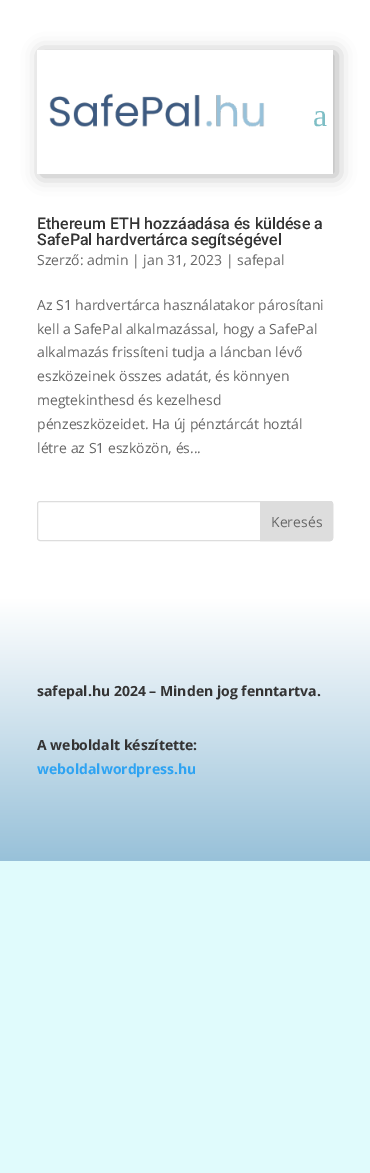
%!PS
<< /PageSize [370 1173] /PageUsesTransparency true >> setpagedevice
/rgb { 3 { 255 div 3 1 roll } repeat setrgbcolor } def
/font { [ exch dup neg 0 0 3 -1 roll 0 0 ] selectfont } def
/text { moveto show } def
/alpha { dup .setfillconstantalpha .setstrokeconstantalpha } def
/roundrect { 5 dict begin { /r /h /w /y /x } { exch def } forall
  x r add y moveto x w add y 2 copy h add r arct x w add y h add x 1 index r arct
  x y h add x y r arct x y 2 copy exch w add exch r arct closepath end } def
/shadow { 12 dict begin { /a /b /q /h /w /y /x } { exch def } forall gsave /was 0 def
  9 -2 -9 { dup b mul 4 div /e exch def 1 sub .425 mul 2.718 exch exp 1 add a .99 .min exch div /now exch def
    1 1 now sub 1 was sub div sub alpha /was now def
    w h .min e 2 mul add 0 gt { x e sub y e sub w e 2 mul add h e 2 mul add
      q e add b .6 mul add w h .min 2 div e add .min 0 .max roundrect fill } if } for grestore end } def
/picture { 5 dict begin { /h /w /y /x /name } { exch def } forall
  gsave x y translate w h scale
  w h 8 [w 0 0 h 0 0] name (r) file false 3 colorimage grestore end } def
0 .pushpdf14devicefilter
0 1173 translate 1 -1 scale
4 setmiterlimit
224 251 252 rgb
0 0 370 1173 rectfill
255 255 255 rgb
0 0 370 599 rectfill
gsave
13 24 moveto 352 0 rlineto 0 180 rlineto -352 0 rlineto closepath 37 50 moveto 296 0 rlineto 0 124 rlineto -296 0 rlineto closepath eoclip newpath
0 0 0 rgb
41 52 296 124 0 9 0.3 shadow
grestore
(img_01.rgb) 49 93 216 34 picture
221 221 221 rgb
37.5 501.5 295 39 2.5 roundrect stroke
260.5 501.5 moveto 69.5 0 rlineto 1.5 0 2.5 1 2.5 2.5 rcurveto 0 34 rlineto 0 1.5 -1 2.5 -2.5 2.5 rcurveto -69.5 0 rlineto closepath gsave fill grestore
stroke
gsave 0 599 moveto 370 0 rlineto 0 262 rlineto -370 0 rlineto closepath clip newpath
<< /ShadingType 2 /ColorSpace /DeviceRGB /Coords [185 599 185 861] /Extend [true true] /Function << /FunctionType 2 /Domain [0 1] /C0 [1 1 1] /C1 [0.596 0.757 0.851] /N 1 >> >> shfill grestore
/LiberationSerif-Regular 32 font
126 190 197 rgb
(a) 313 126 text
/Roboto-Medium 16 font
51 51 51 rgb
(Ethereum ETH hozzáadása és küldése a) 37 229 text
(SafePal hardvertárca segítségével) 37 245 text
/OpenSans-Regular 14 font
102 102 102 rgb
(Szerző: admin | jan 31, 2023 | safepal) 37 265 text
(Az S1 hardvertárca használatakor párosítani) 37 310 text
(kell a SafePal alkalmazással, hogy a SafePal) 37 334 text
(alkalmazás frissíteni tudja a láncban lévő) 37 357 text
(eszközeinek összes adatát, és könnyen) 37 381 text
(megtekinthesd és kezelhesd) 37 405 text
(pénzeszközeidet. Ha új pénztárcát hoztál) 37 429 text
(létre az S1 eszközön, és...) 37 453 text
(Keresés) 271 527 text
/OpenSans-Bold 14 font
51 51 51 rgb
(safepal.hu 2024 – Minden jog fenntartva.) 37 696 text
(A weboldalt készítette:) 37 750 text
46 163 242 rgb
(weboldalwordpress.hu) 37 774 text
.poppdf14devicefilter showpage
